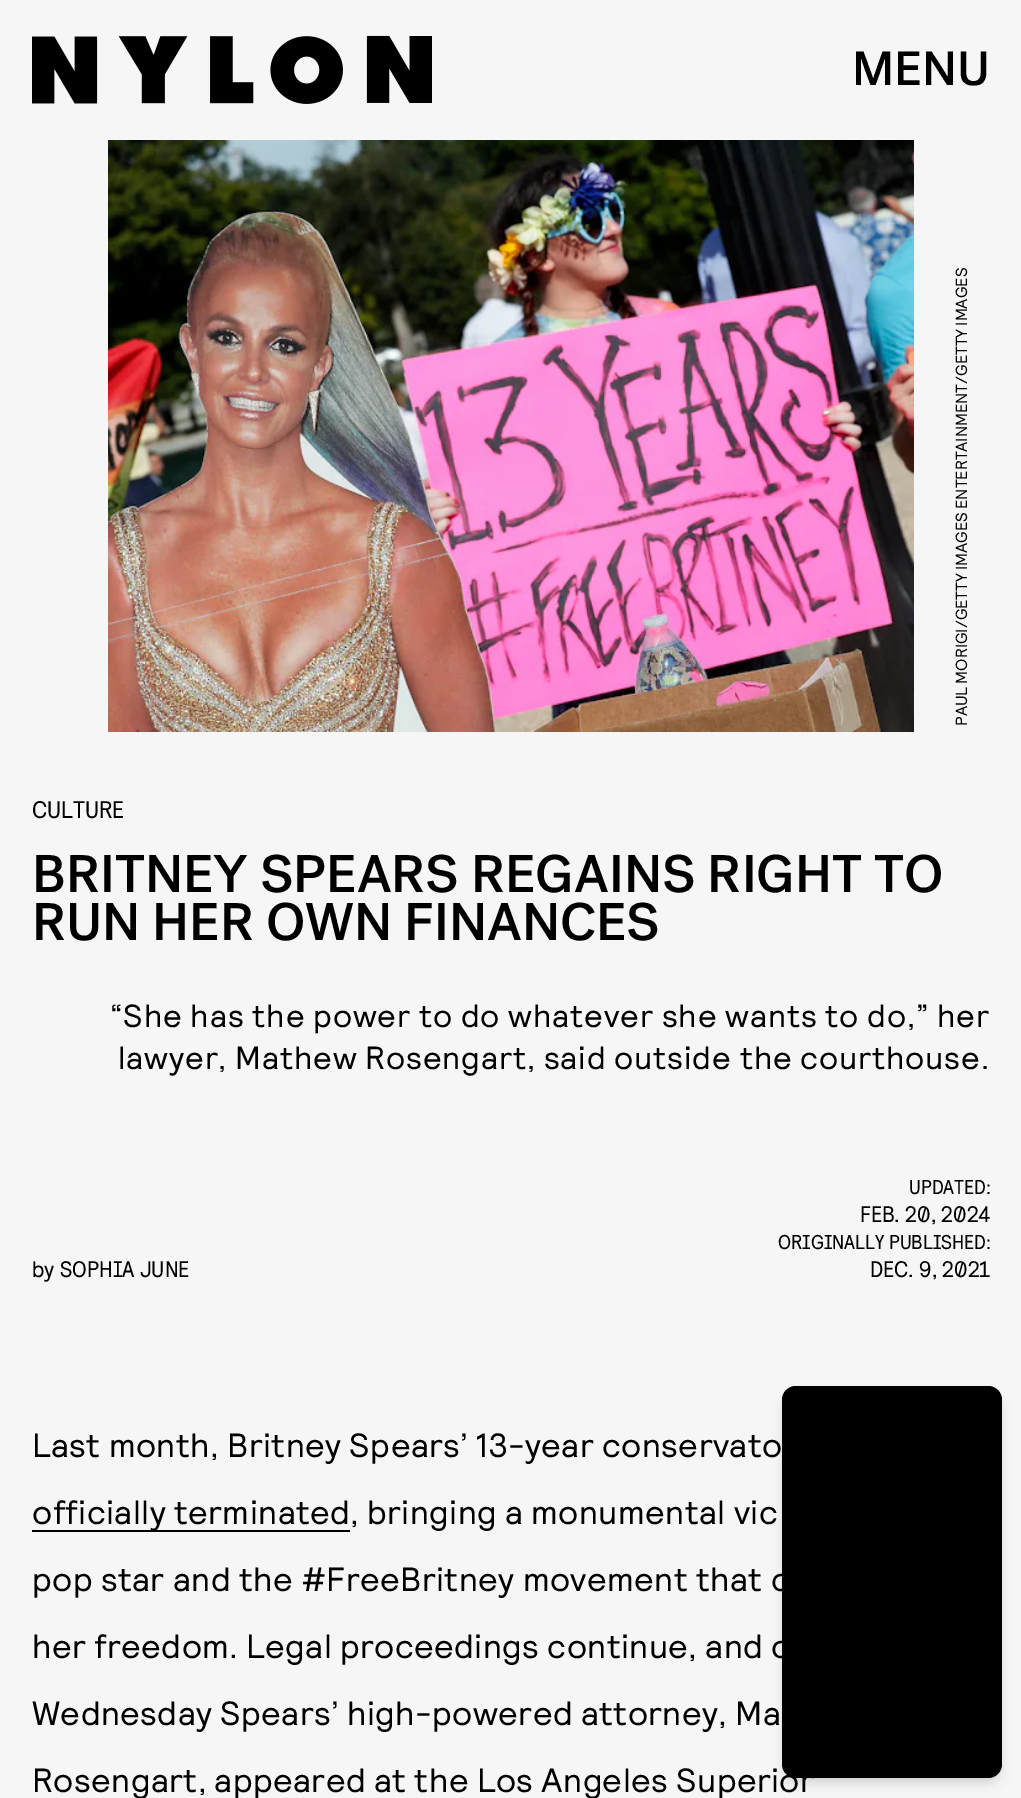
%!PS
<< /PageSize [1021 1798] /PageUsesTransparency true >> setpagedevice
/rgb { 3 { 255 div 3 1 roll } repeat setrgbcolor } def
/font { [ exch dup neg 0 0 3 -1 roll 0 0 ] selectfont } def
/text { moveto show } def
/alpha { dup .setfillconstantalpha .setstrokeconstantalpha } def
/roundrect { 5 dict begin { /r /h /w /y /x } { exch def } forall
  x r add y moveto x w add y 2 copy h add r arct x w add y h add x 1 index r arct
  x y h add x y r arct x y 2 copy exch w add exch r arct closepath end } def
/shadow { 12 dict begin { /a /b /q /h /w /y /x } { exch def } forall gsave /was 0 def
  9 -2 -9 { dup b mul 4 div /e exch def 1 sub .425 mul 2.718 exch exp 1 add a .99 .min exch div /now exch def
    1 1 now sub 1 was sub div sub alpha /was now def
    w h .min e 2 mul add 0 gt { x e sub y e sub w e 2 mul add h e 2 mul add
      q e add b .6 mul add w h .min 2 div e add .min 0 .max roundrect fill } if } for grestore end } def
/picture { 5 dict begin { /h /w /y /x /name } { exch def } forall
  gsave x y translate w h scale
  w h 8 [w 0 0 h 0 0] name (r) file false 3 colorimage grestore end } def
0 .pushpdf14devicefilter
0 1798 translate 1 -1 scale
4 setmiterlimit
246 246 246 rgb
0 0 1021 1798 rectfill
(img_01.rgb) 32 35 400 69 picture
(img_02.rgb) 108 140 806 592 picture
0 0 0 rgb
32 1530 318 2 rectfill
786 1394 212 384 10 4 0.1 shadow
784 1396 216 388 12 6 0.1 shadow
782 1386 220 392 14 roundrect fill
/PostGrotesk-Medium 48 font
(MENU) 852 85 text
/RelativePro-Regular 16 font
gsave 967 726 translate -90 rotate 0 0 moveto -0.5 0 32 (PAUL MORIGI/GETTY IMAGES ENTERTAINMENT/GETTY IMAGES) widthshow grestore
/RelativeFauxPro-Regular 24 font
(CULTURE) 32 818 text
/PostGrotesk-Medium 52.75 font
(BRITNEY SPEARS REGAINS RIGHT TO) 32 892 text
(RUN HER OWN FINANCES) 32 940 text
/RelativePro-Regular 32 font
110 1027 moveto 0.8 0 (“She has the power to do whatever she wants to do,” her) ashow
118 1069 moveto 0.8 0 (lawyer, Mathew Rosengart, said outside the courthouse.) ashow
/RelativeFauxPro-Regular 22.5 font
(by SOPHIA JUNE) 32 1277 text
/RelativeFauxPro-Regular 20 font
(UPDATED:) 909 1194 text
/RelativeFauxPro-Regular 22.5 font
(FEB. 20, 2024) 860 1222 text
/RelativeFauxPro-Regular 20 font
(ORIGINALLY PUBLISHED:) 778 1249 text
/RelativeFauxPro-Regular 22.5 font
(DEC. 9, 2021) 870 1277 text
/RelativePro-Regular 33.6 font
32 1457 moveto 0.4 0 (Last month, Britney Spears’ 13-year conservato) ashow
32 1524 moveto 0.4 0 (officially terminated) ashow
350 1524 moveto 0.4 0 (, bringing a monumental vic) ashow
32 1591 moveto 0.4 0 (pop star and the #FreeBritney movement that c) ashow
32 1658 moveto 0.4 0 (her freedom. Legal proceedings continue, and o) ashow
32 1725 moveto 0.4 0 (Wednesday Spears’ high-powered attorney, Ma) ashow
32 1792 moveto 0.4 0 (Rosengart, appeared at the Los Angeles Superior) ashow
.poppdf14devicefilter showpage
